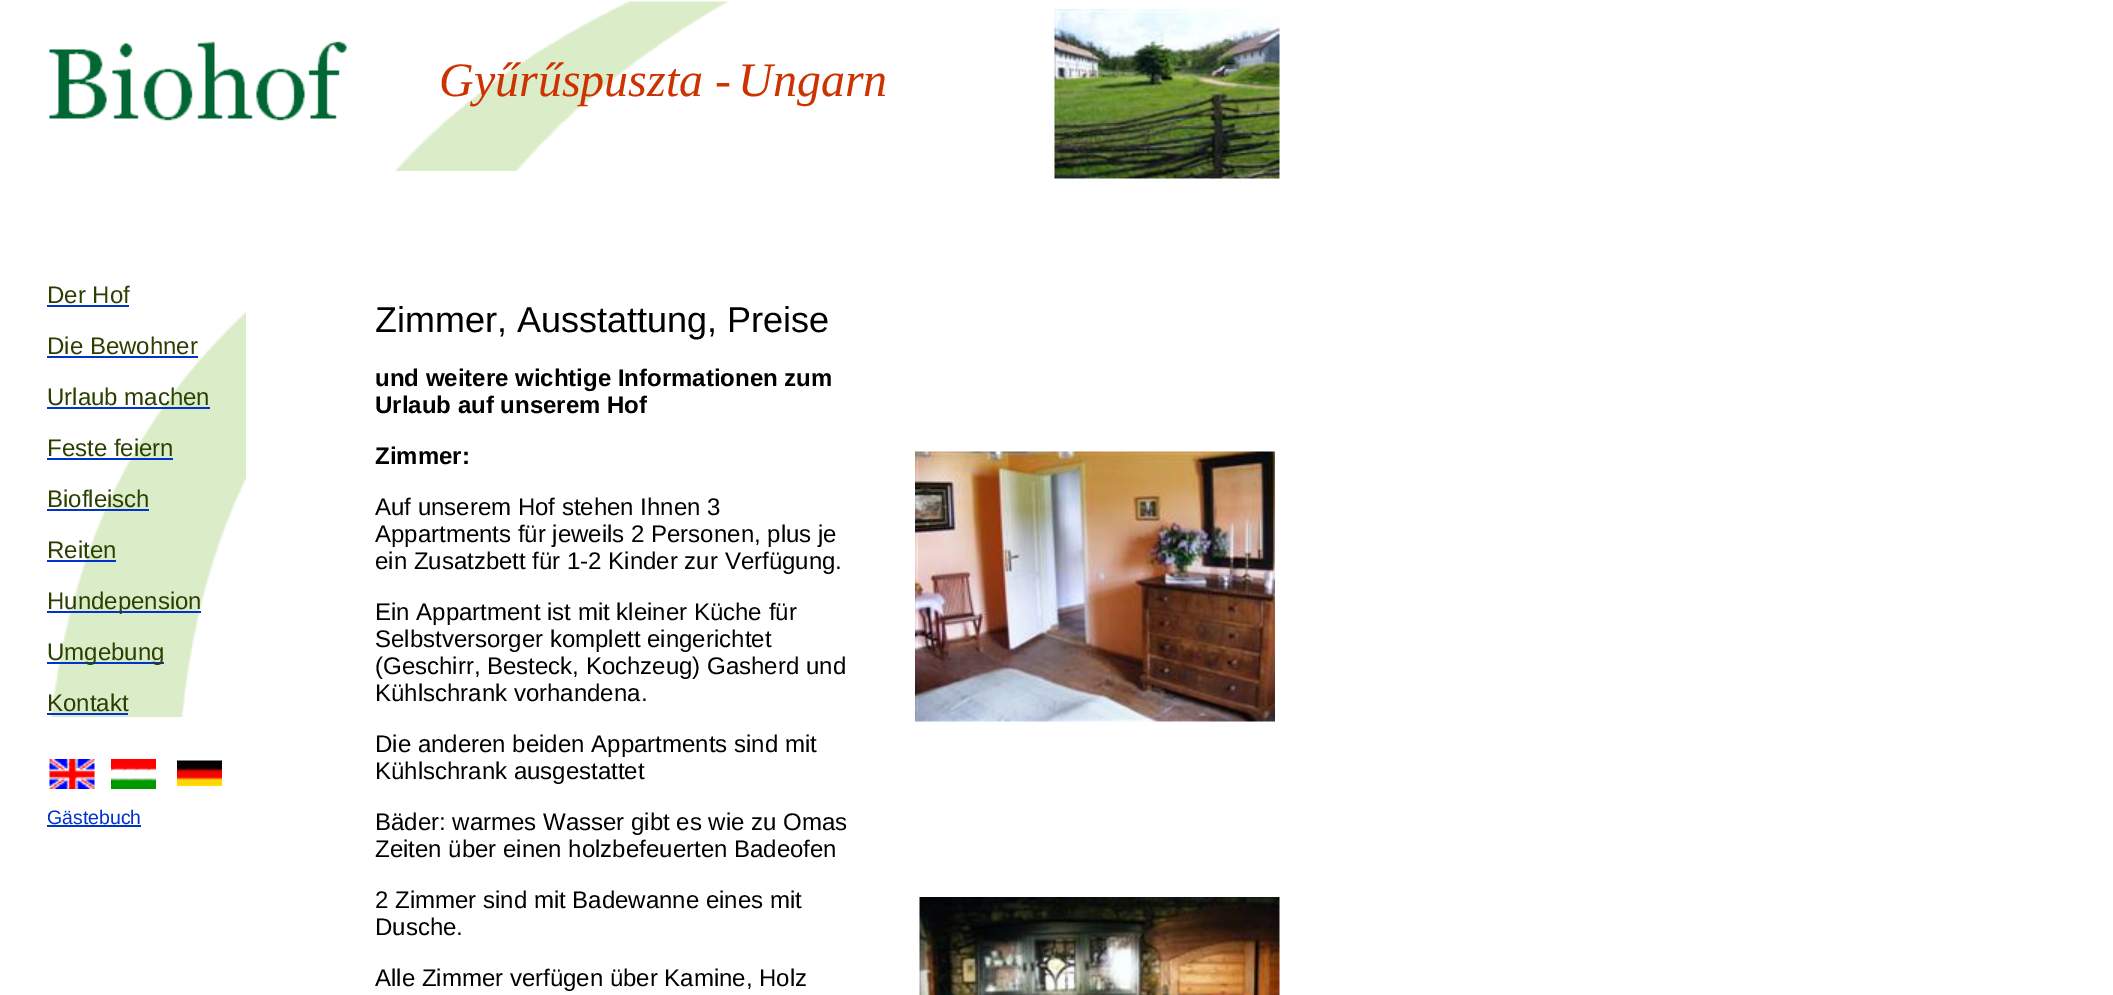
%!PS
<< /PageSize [2113 995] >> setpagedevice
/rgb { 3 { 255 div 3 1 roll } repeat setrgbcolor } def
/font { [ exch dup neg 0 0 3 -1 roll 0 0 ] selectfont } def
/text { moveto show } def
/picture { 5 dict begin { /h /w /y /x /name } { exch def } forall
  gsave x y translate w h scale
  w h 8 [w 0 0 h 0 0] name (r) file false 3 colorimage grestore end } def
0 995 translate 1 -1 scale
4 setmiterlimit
255 255 255 rgb
0 0 2113 995 rectfill
(img_01.rgb) 49 41 298 80 picture
(img_02.rgb) 394 1 334 170 picture
(img_03.rgb) 1054 9 226 170 picture
(img_04.rgb) 50 311 196 406 picture
0 51 204 rgb
47 305 82 2 rectfill
47 356 151 2 rectfill
47 407 163 2 rectfill
47 458 126 2 rectfill
47 509 102 2 rectfill
47 560 69 2 rectfill
47 611 154 2 rectfill
47 662 117 2 rectfill
47 713 81 2 rectfill
(img_05.rgb) 49 759 46 30 picture
(img_06.rgb) 111 759 45 30 picture
(img_07.rgb) 177 760 45 26 picture
47 825 94 2 rectfill
(img_08.rgb) 915 451 360 271 picture
(img_09.rgb) 919 897 361 98 picture
/LiberationSerif-Italic 48 font
204 51 0 rgb
(Gyűrűspuszta -) 439 96 text
(Ungarn) 738 96 text
/LiberationSans-Regular 24 font
42 63 0 rgb
(Der Hof) 47 303 text
(Die Bewohner) 47 354 text
(Urlaub machen) 47 405 text
(Feste feiern) 47 456 text
(Biofleisch) 47 507 text
(Reiten) 47 558 text
(Hundepension) 47 609 text
(Umgebung) 47 660 text
(Kontakt) 47 711 text
/LiberationSans-Regular 19.5 font
0 51 204 rgb
(Gästebuch) 47 824 text
/LiberationSans-Regular 36 font
0 0 0 rgb
(Zimmer, Ausstattung, Preise) 375 332 text
/LiberationSans-Bold 24 font
(und weitere wichtige Informationen zum) 375 386 text
(Urlaub auf unserem Hof) 375 413 text
(Zimmer:) 375 464 text
/LiberationSans-Regular 24 font
(Auf unserem Hof stehen Ihnen 3) 375 515 text
(Appartments für jeweils 2 Personen, plus je) 375 542 text
(ein Zusatzbett für 1-2 Kinder zur Verfügung.) 375 569 text
(Ein Appartment ist mit kleiner Küche für) 375 620 text
(Selbstversorger komplett eingerichtet) 375 647 text
(\(Geschirr, Besteck, Kochzeug\) Gasherd und) 375 674 text
(Kühlschrank vorhandena.) 375 701 text
(Die anderen beiden Appartments sind mit) 375 752 text
(Kühlschrank ausgestattet) 375 779 text
(Bäder: warmes Wasser gibt es wie zu Omas) 375 830 text
(Zeiten über einen holzbefeuerten Badeofen) 375 857 text
(2 Zimmer sind mit Badewanne eines mit) 375 908 text
(Dusche.) 375 935 text
(Alle Zimmer verfügen über Kamine, Holz) 375 986 text
showpage
